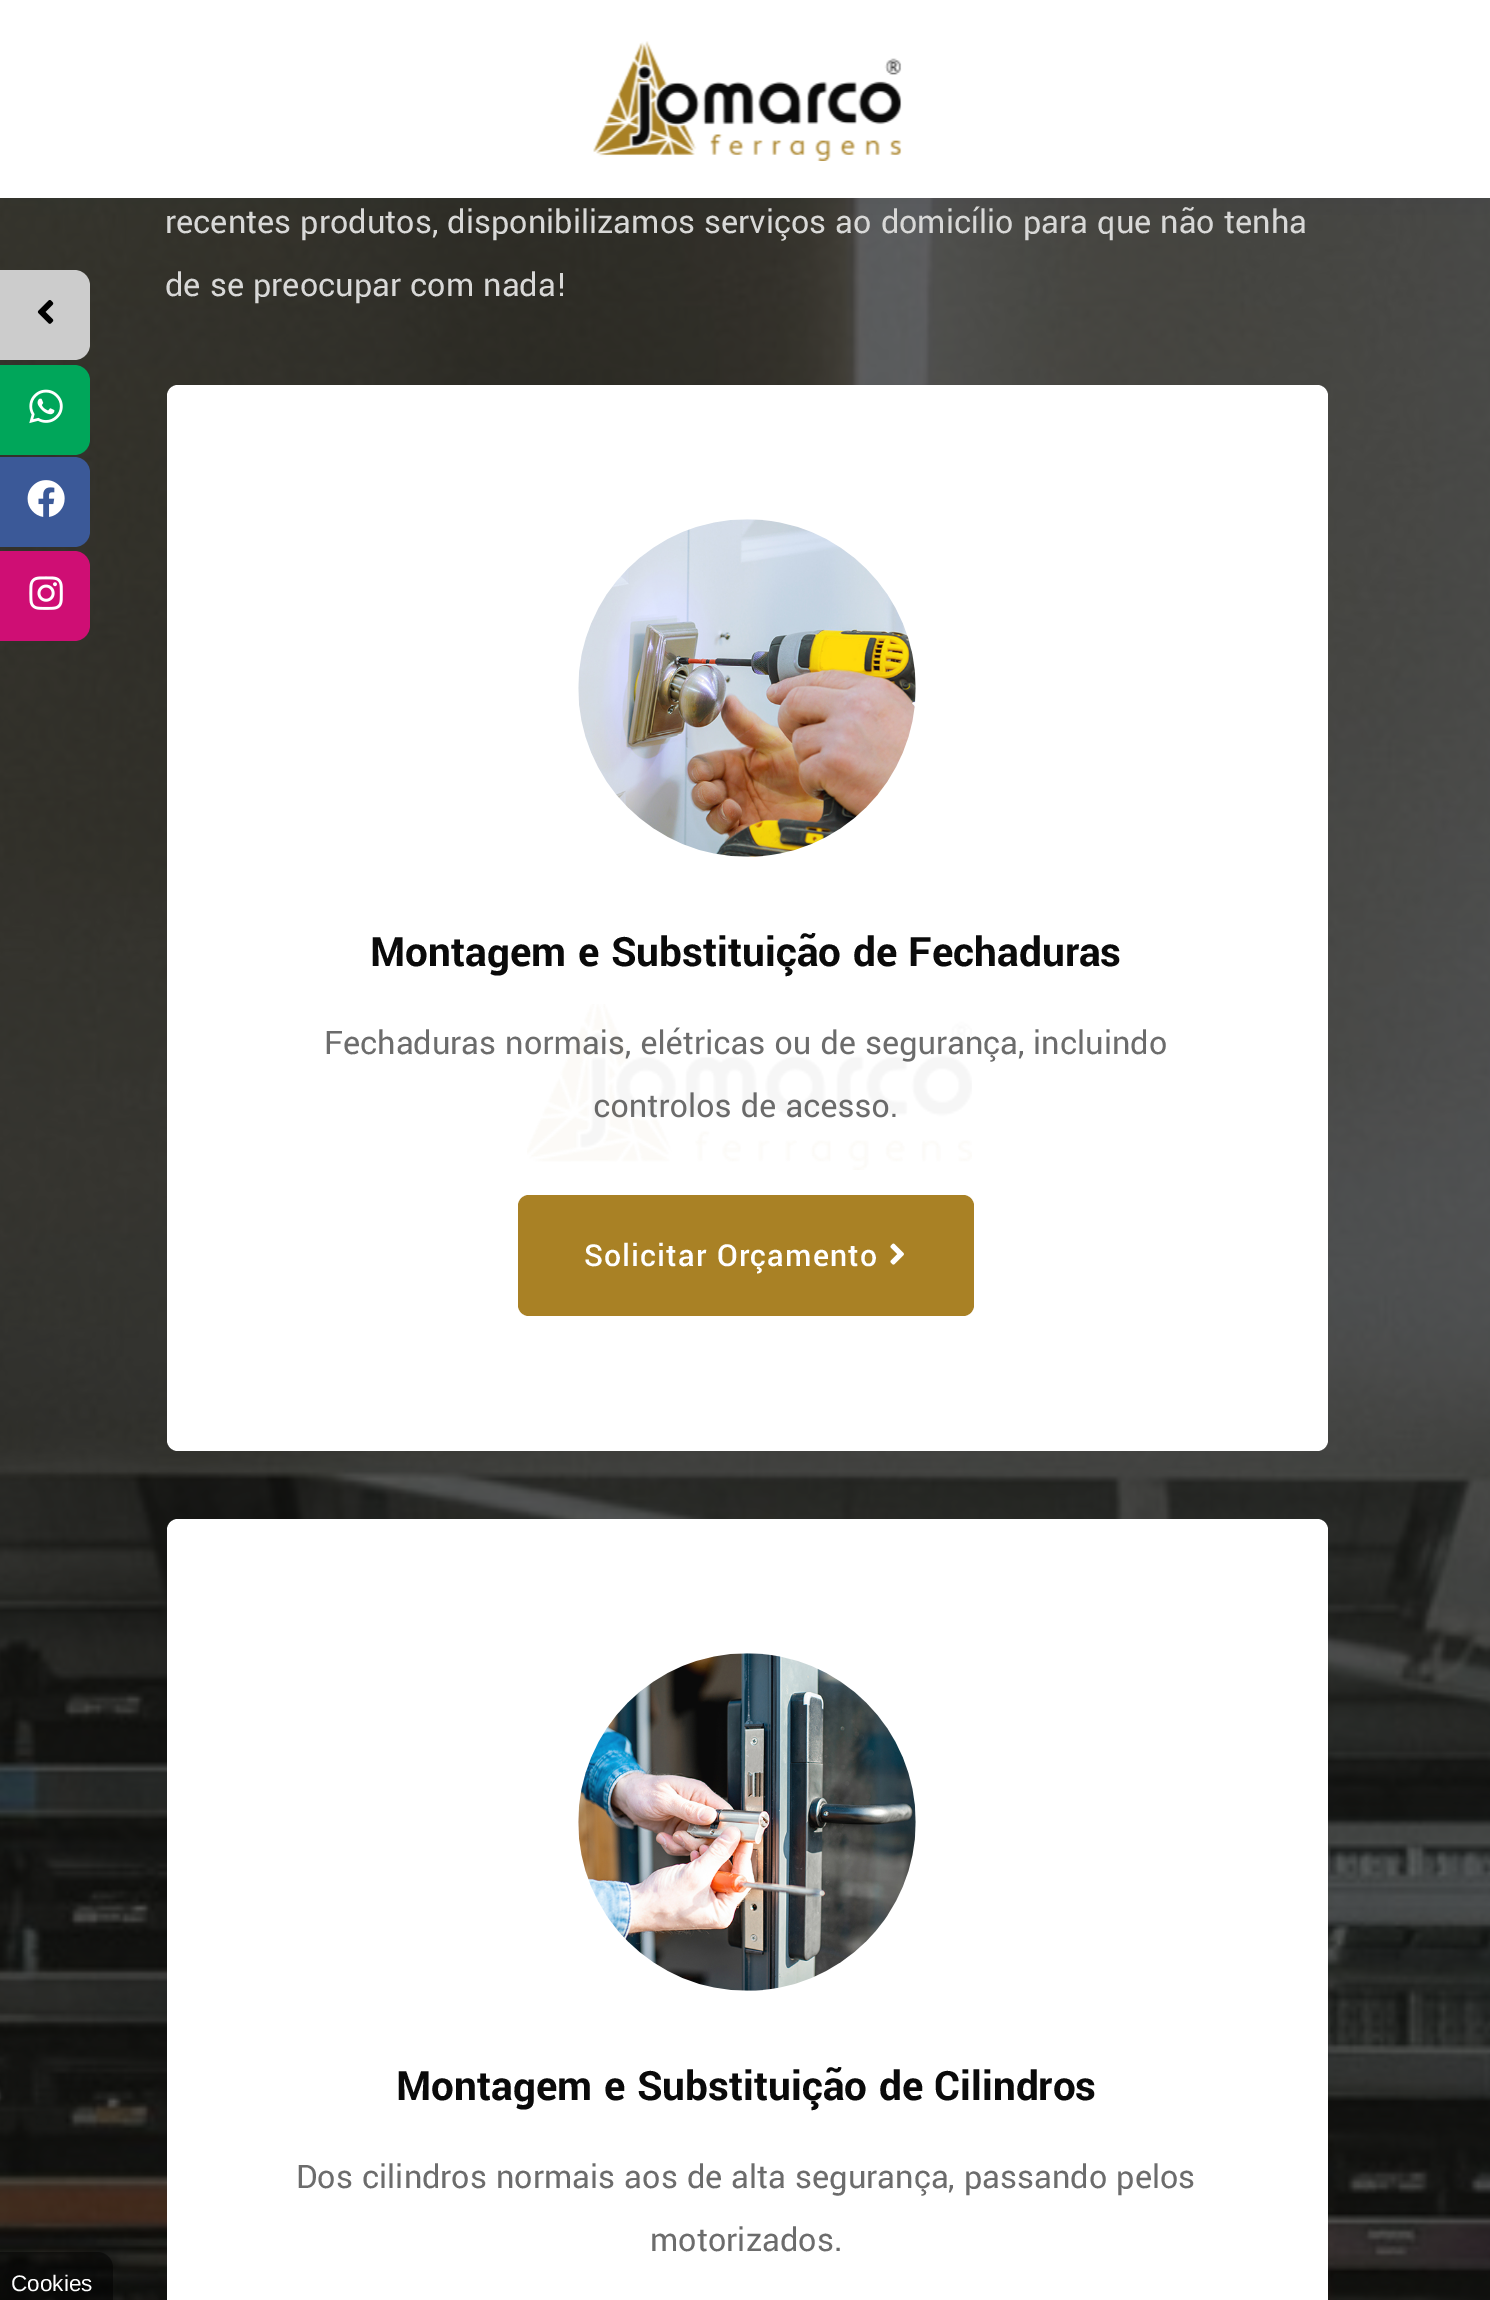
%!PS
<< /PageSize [1490 2300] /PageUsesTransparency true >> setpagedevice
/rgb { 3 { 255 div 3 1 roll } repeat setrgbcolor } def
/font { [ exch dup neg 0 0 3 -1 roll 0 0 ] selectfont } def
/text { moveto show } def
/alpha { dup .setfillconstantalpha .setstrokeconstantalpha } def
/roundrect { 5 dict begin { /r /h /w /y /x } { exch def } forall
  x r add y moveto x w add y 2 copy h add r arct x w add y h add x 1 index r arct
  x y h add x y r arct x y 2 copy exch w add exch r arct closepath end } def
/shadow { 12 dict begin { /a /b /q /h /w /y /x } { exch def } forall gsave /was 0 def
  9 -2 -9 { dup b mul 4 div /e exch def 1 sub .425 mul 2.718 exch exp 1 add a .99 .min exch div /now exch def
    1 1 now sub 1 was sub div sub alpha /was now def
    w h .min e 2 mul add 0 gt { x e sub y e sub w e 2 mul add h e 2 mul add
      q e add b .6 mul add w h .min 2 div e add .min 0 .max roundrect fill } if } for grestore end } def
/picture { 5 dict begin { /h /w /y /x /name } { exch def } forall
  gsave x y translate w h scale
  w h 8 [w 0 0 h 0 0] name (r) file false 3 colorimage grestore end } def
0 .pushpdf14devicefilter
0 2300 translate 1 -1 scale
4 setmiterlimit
255 255 255 rgb
0 0 1490 2300 rectfill
(img_06.rgb) 0 198 1490 2102 picture
17 29 60 rgb
0 0 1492 198 0 22.5 0.1 shadow
255 255 255 rgb
0 0 1490 198 rectfill
(img_01.rgb) 593 41 309 120 picture
204 204 204 rgb
0 270 moveto 74 0 rlineto 9 0 16 7 16 16 rcurveto 0 58 rlineto 0 9 -7 16 -16 16 rcurveto -74 0 rlineto closepath fill
(img_02.rgb) 37 300 17 24 picture
0 166 90 rgb
0 365 moveto 74 0 rlineto 9 0 16 7 16 16 rcurveto 0 58 rlineto 0 9 -7 16 -16 16 rcurveto -74 0 rlineto closepath fill
(img_03.rgb) 29 389 34 35 picture
59 89 152 rgb
0 457 moveto 74 0 rlineto 9 0 16 7 16 16 rcurveto 0 58 rlineto 0 9 -7 16 -16 16 rcurveto -74 0 rlineto closepath fill
(img_04.rgb) 27 480 38 37 picture
207 14 116 rgb
0 551 moveto 74 0 rlineto 9 0 16 7 16 16 rcurveto 0 58 rlineto 0 9 -7 16 -16 16 rcurveto -74 0 rlineto closepath fill
(img_05.rgb) 29 576 34 34 picture
255 255 255 rgb
167 385 1161 1066 11 roundrect fill
(img_07.rgb) 578 519 338 338 picture
169 129 37 rgb
518 1195 456 121 11 roundrect fill
(img_08.rgb) 890 1243 14 22 picture
255 255 255 rgb
167 1519 1161 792 11 roundrect fill
(img_09.rgb) 578 1653 338 338 picture
0.5 alpha
0 0 0 rgb
0 2252 moveto 97 0 rlineto 9 0 16 7 16 16 rcurveto 0 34 rlineto -113 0 rlineto closepath fill
/Yantramanav-Regular 36 font
1 alpha
216 216 215 rgb
(recentes produtos, disponibilizamos serviços ao domicílio para que não tenha) 165 233 text
(de se preocupar com nada!) 165 296 text
/Yantramanav-Bold 45 font
10 10 10 rgb
(Montagem e Substituição de Fechaduras) 370 966 text
/Yantramanav-Regular 36 font
108 108 108 rgb
(Fechaduras normais, elétricas ou de segurança, incluindo) 324 1054 text
(controlos de acesso.) 593 1117 text
/Yantramanav-Medium 33.75 font
255 255 255 rgb
584 1266 moveto 1.1 0 (Solicitar Orçamento) ashow
/Yantramanav-Bold 45 font
10 10 10 rgb
(Montagem e Substituição de Cilindros) 396 2100 text
/Yantramanav-Regular 36 font
108 108 108 rgb
(Dos cilindros normais aos de alta segurança, passando pelos) 296 2188 text
(motorizados.) 650 2251 text
(img_10.rgb) 527 1004 445 166 picture
/LiberationSans-Regular 22.5 font
255 255 255 rgb
(Cookies) 11 2291 text
.poppdf14devicefilter showpage
